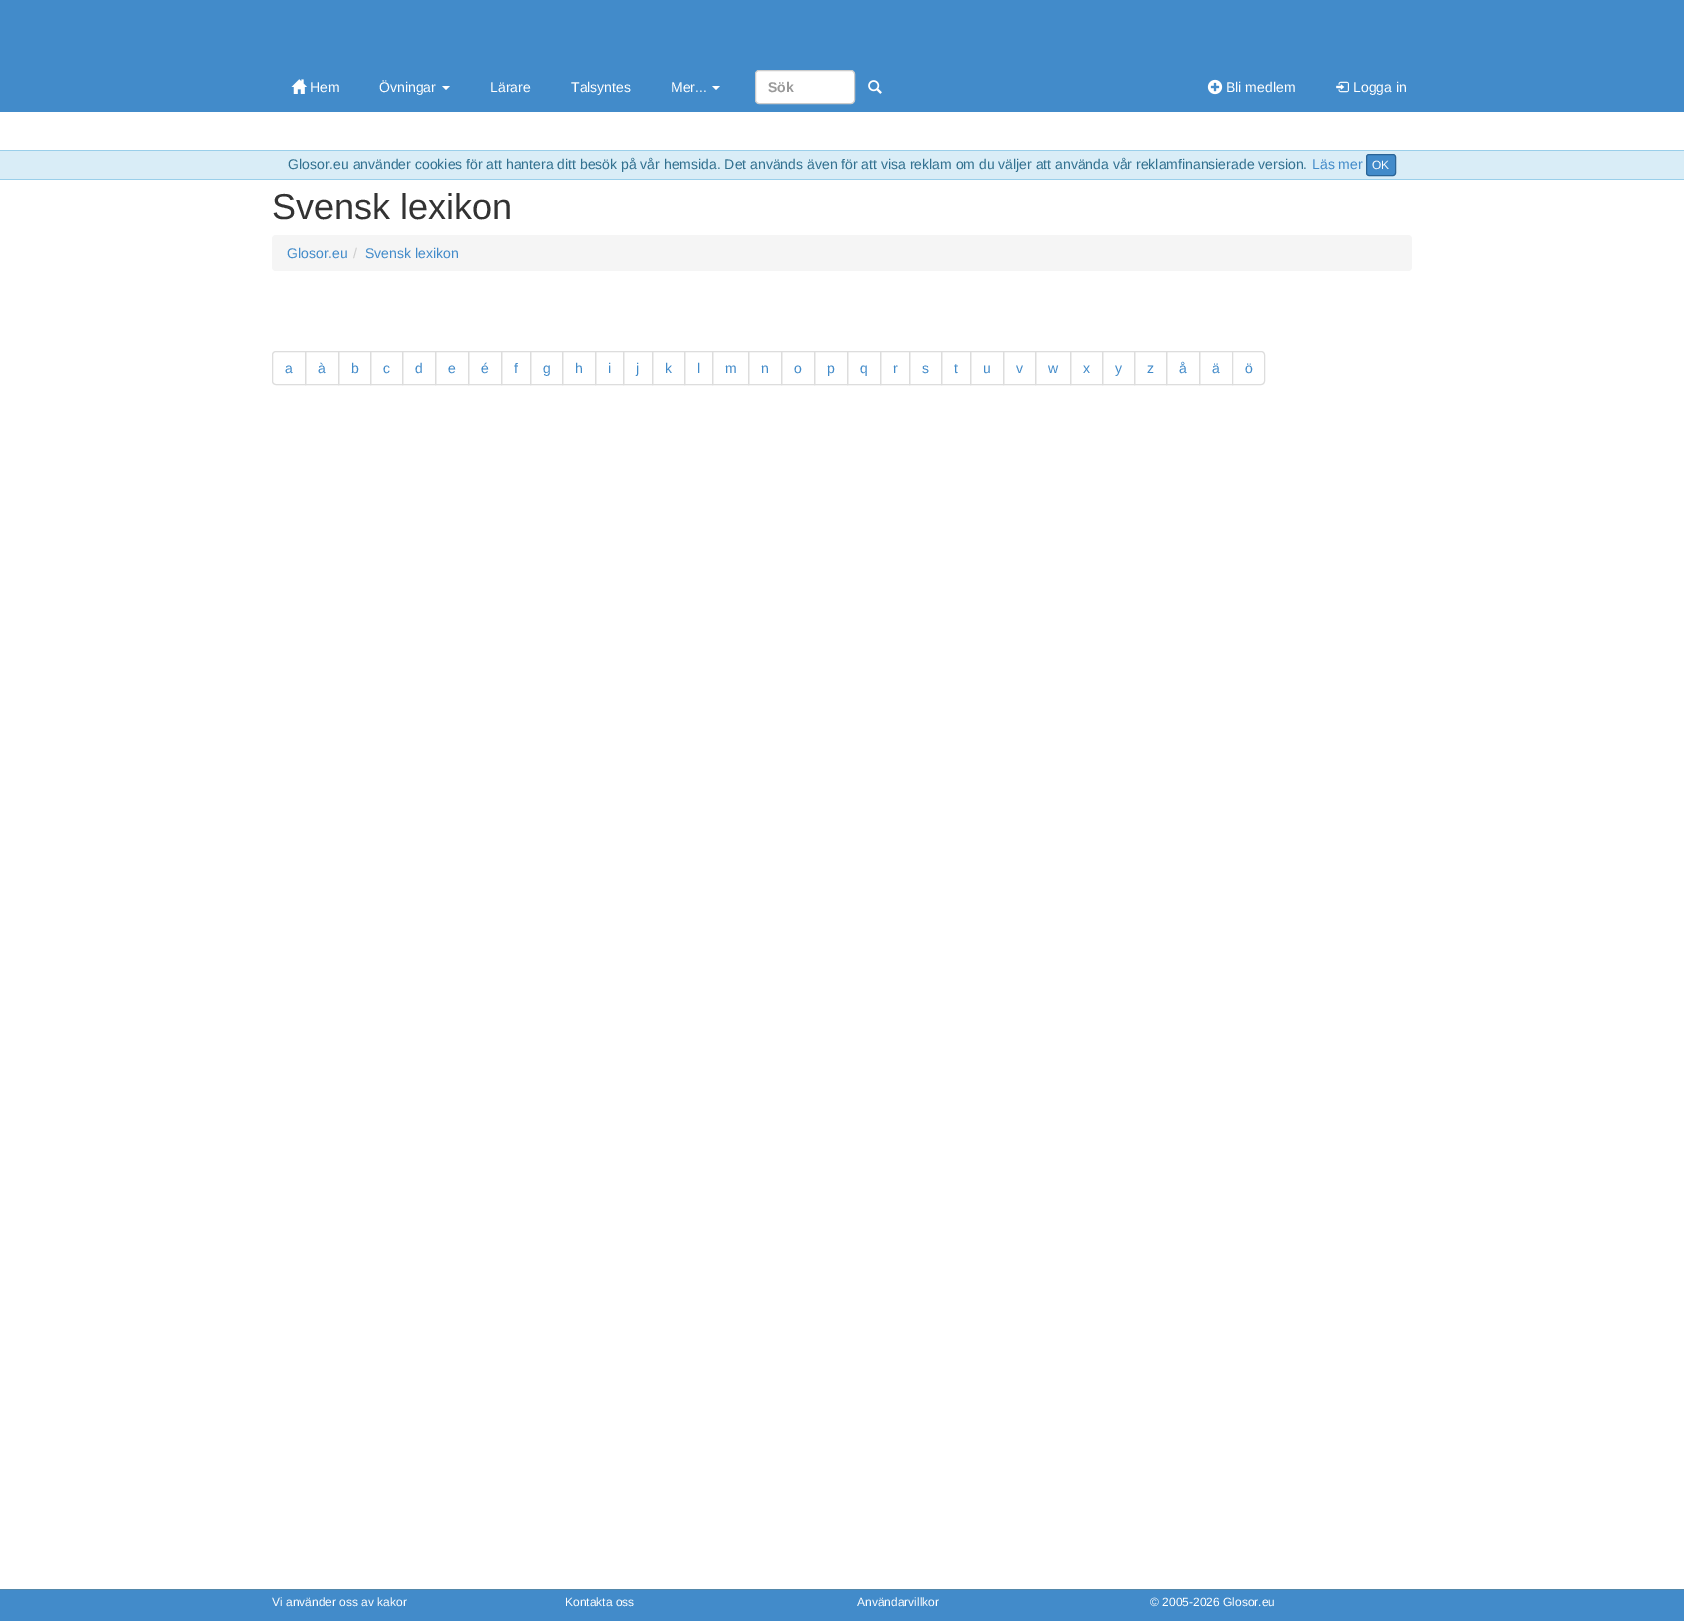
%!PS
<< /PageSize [1684 1621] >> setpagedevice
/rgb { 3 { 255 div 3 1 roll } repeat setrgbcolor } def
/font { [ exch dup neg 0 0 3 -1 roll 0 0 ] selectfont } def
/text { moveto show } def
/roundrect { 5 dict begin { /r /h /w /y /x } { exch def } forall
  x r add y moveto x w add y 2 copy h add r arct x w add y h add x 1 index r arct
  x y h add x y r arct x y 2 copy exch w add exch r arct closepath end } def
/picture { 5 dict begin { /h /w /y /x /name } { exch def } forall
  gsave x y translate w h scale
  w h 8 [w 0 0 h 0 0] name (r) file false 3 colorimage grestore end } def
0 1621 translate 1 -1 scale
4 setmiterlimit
255 255 255 rgb
0 0 1684 1621 rectfill
66 139 202 rgb
0 0 1684 112 rectfill
(img_01.rgb) 291 79 16 15 picture
255 255 255 rgb
442 86 moveto 8 0 rlineto -4 4 rlineto closepath fill
712 86 moveto 8 0 rlineto -4 4 rlineto closepath fill
755.5 70.5 99 33 3.5 roundrect gsave fill grestore
204 204 204 rgb
stroke
(img_02.rgb) 868 80 14 14 picture
(img_03.rgb) 1207 79 16 16 picture
(img_04.rgb) 1336 81 13 12 picture
217 237 247 rgb
0 151 1684 28 rectfill
154 207 234 rgb
0 150 1684 1 rectfill
0 179 1684 1 rectfill
66 139 202 rgb
1366.5 154.5 29 21 2.5 roundrect gsave fill grestore
42 100 150 rgb
stroke
245 245 245 rgb
272 235 1140 36 4 roundrect fill
221 221 221 rgb
276 351.5 moveto 29.5 0 rlineto 0 33 rlineto -29.5 0 rlineto -2 0 -3.5 -1.5 -3.5 -3.5 rcurveto 0 -26 rlineto 0 -2 1.5 -3.5 3.5 -3.5 rcurveto closepath stroke
305.5 351.5 33 33 rectstroke
338.5 351.5 32 33 rectstroke
370.5 351.5 32 33 rectstroke
402.5 351.5 33 33 rectstroke
435.5 351.5 33 33 rectstroke
468.5 351.5 33 33 rectstroke
501.5 351.5 29 33 rectstroke
530.5 351.5 32 33 rectstroke
562.5 351.5 33 33 rectstroke
595.5 351.5 28 33 rectstroke
623.5 351.5 29 33 rectstroke
652.5 351.5 32 33 rectstroke
684.5 351.5 28 33 rectstroke
712.5 351.5 36 33 rectstroke
748.5 351.5 33 33 rectstroke
781.5 351.5 33 33 rectstroke
814.5 351.5 33 33 rectstroke
847.5 351.5 33 33 rectstroke
880.5 351.5 29 33 rectstroke
909.5 351.5 32 33 rectstroke
941.5 351.5 29 33 rectstroke
970.5 351.5 33 33 rectstroke
1003.5 351.5 32 33 rectstroke
1035.5 351.5 35 33 rectstroke
1070.5 351.5 32 33 rectstroke
1102.5 351.5 32 33 rectstroke
1134.5 351.5 32 33 rectstroke
1166.5 351.5 33 33 rectstroke
1199.5 351.5 33 33 rectstroke
255 255 255 rgb
1232.5 351.5 moveto 28.5 0 rlineto 2 0 3.5 1.5 3.5 3.5 rcurveto 0 26 rlineto 0 2 -1.5 3.5 -3.5 3.5 rcurveto -28.5 0 rlineto closepath gsave fill grestore
221 221 221 rgb
stroke
66 139 202 rgb
0 1590 1684 31 rectfill
85 136 170 rgb
0 1589 1684 1 rectfill
/LiberationSans-Regular 14 font
255 255 255 rgb
(Hem) 310 92 text
(Övningar) 379 92 text
(Lärare) 490 92 text
(Talsyntes) 571 92 text
(Mer...) 671 92 text
/LiberationSans-Bold 14 font
153 153 153 rgb
(Sök) 768 92 text
/LiberationSans-Regular 14 font
255 255 255 rgb
(Bli medlem) 1226 92 text
(Logga in) 1353 92 text
49 112 143 rgb
(Glosor.eu använder cookies för att hantera ditt besök på vår hemsida. Det används även för att visa reklam om du väljer att använda vår reklamfinansierade version.) 288 169 text
66 139 202 rgb
(Läs mer) 1312 169 text
/LiberationSans-Regular 12 font
255 255 255 rgb
(OK) 1372 169 text
/LiberationSans-Regular 36 font
51 51 51 rgb
(Svensk lexikon) 272 219 text
/LiberationSans-Regular 14 font
66 139 202 rgb
(Glosor.eu) 287 258 text
204 204 204 rgb
(/) 353 258 text
66 139 202 rgb
(Svensk lexikon) 365 258 text
(a) 285 373 text
(à) 318 373 text
(b) 351 373 text
(c) 383 373 text
(d) 415 373 text
(e) 448 373 text
(é) 481 373 text
(f) 514 373 text
(g) 543 373 text
(h) 575 373 text
(i) 608 373 text
(j) 636 373 text
(k) 665 373 text
(l) 697 373 text
(m) 725 373 text
(n) 761 373 text
(o) 794 373 text
(p) 827 373 text
(q) 860 373 text
(r) 893 373 text
(s) 922 373 text
(t) 954 373 text
(u) 983 373 text
(v) 1016 373 text
(w) 1048 373 text
(x) 1083 373 text
(y) 1115 373 text
(z) 1147 373 text
(å) 1179 373 text
(ä) 1212 373 text
(ö) 1245 373 text
/LiberationSans-Regular 12 font
255 255 255 rgb
(Vi använder oss av kakor) 272 1606 text
(Kontakta oss) 565 1606 text
(Användarvillkor) 857 1606 text
(© 2005-2026 Glosor.eu) 1150 1606 text
showpage
